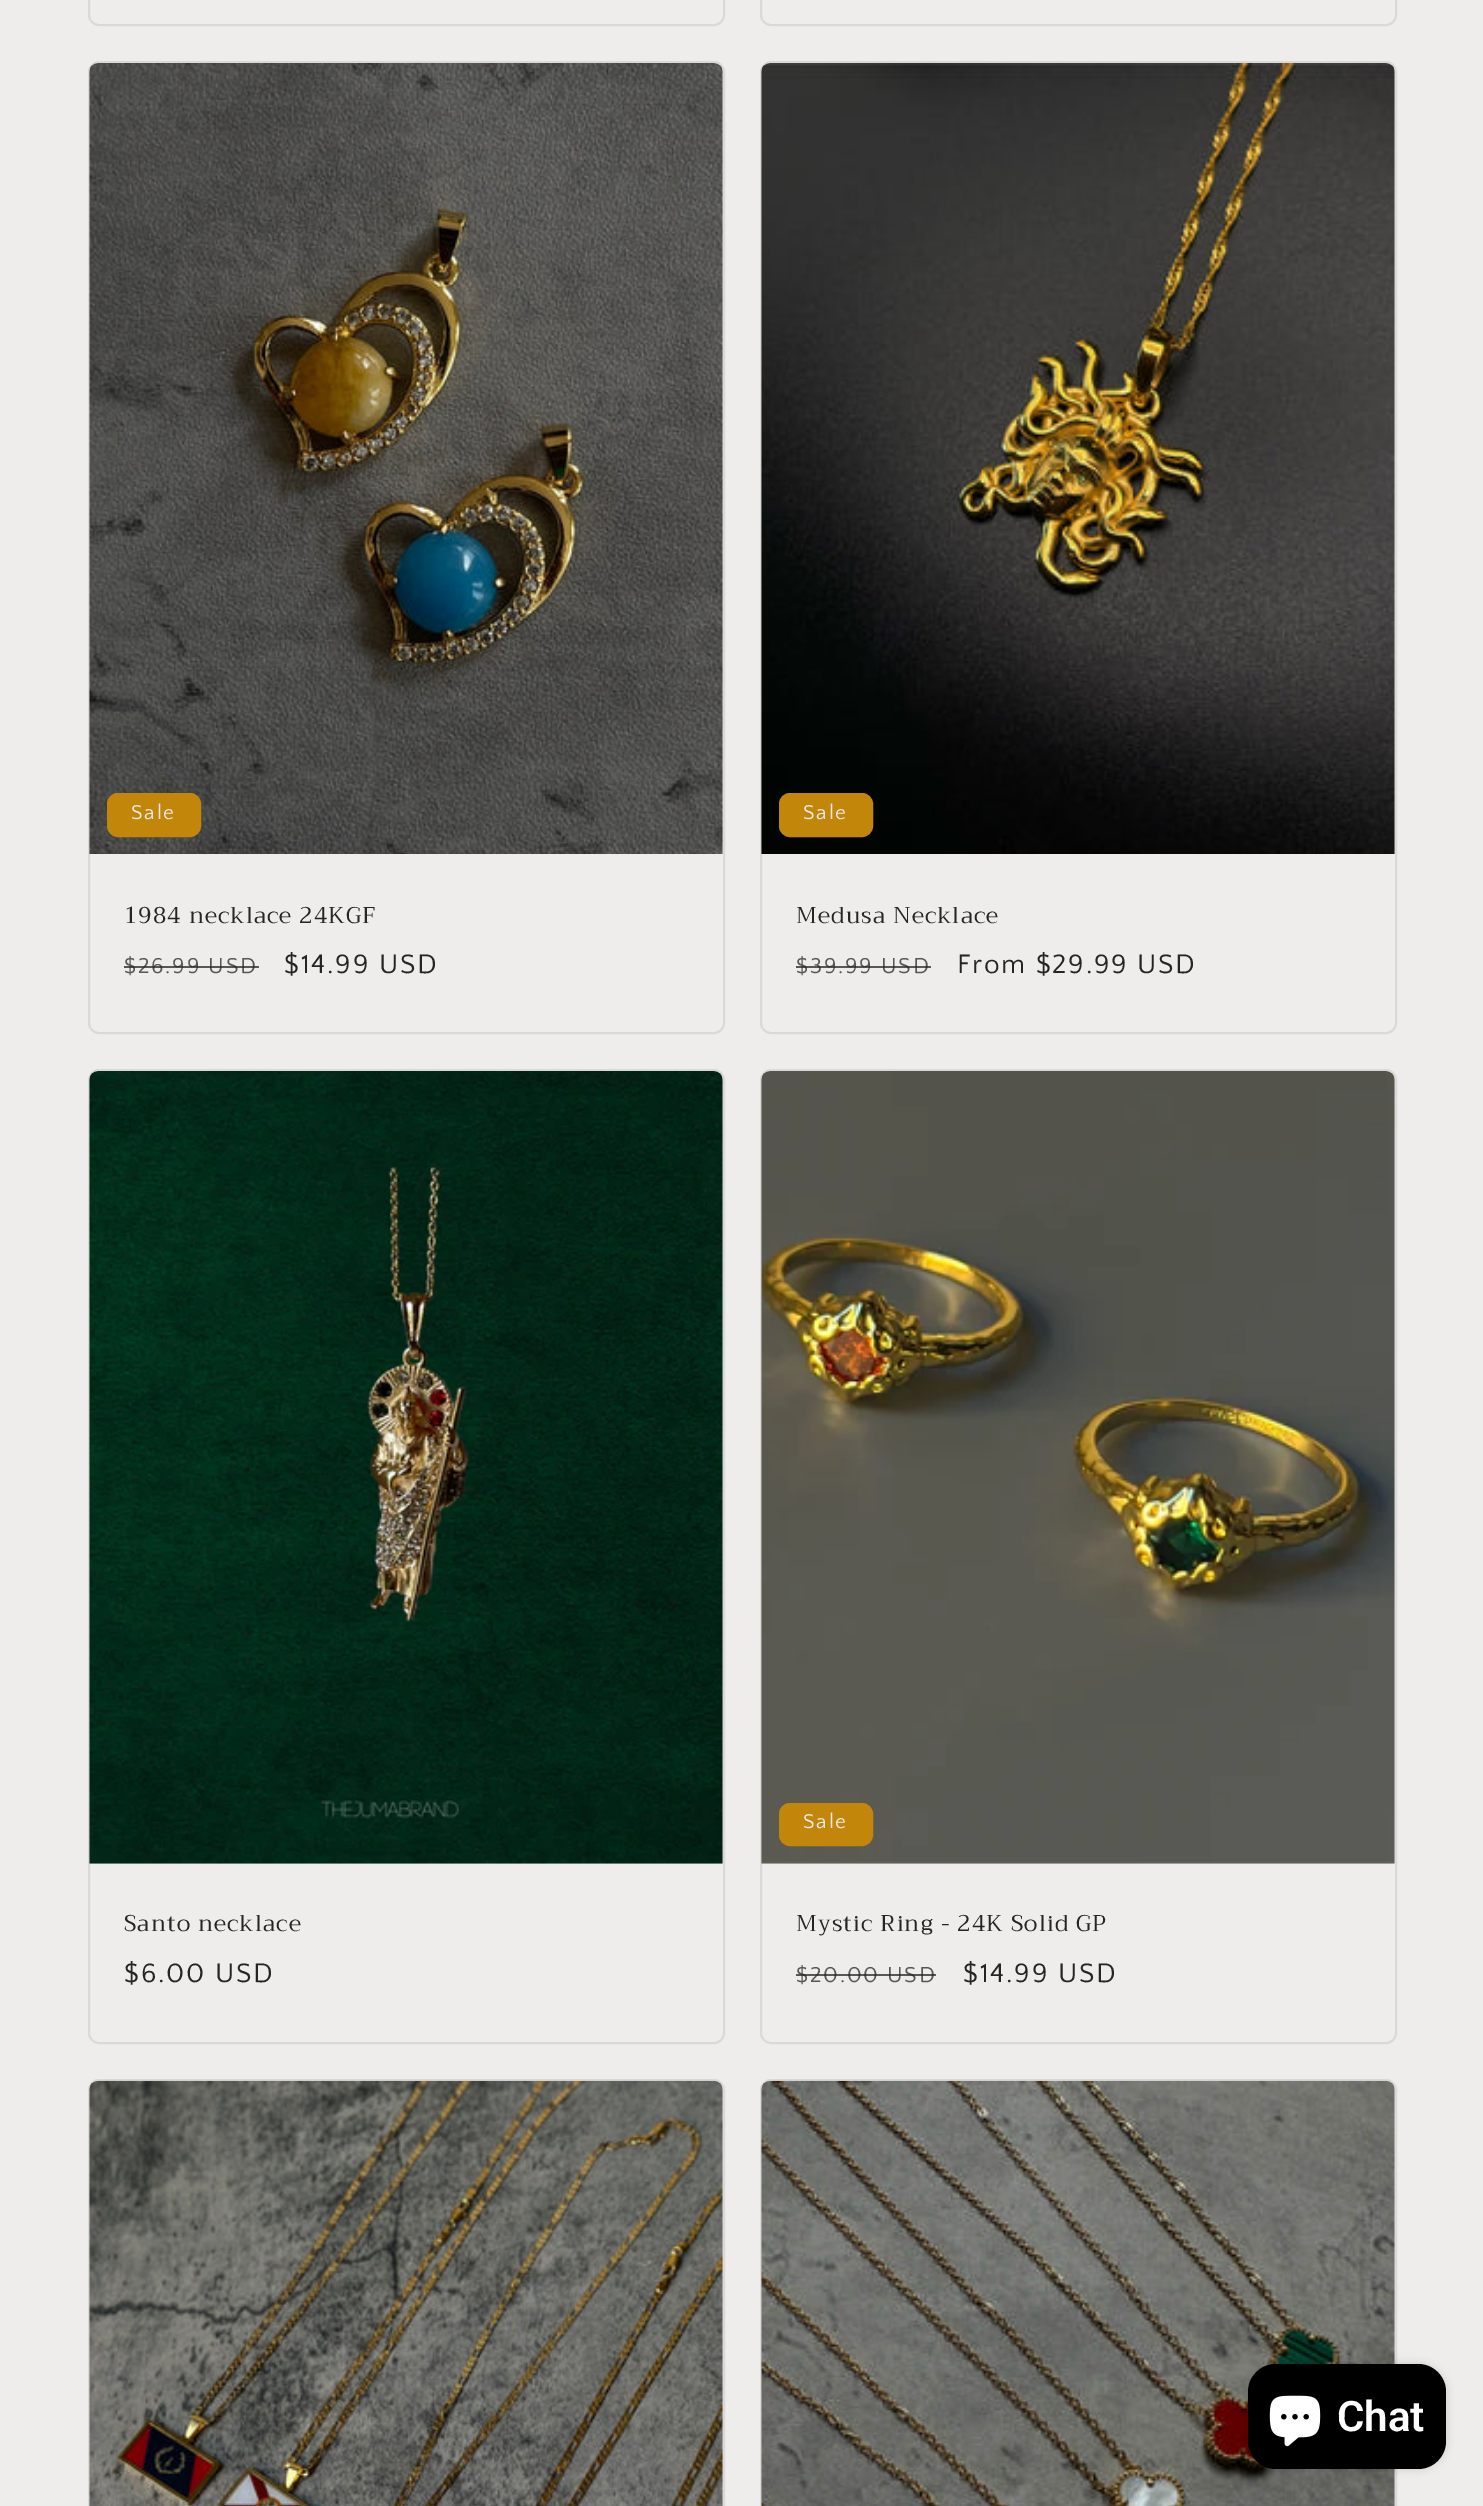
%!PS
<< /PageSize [1483 2506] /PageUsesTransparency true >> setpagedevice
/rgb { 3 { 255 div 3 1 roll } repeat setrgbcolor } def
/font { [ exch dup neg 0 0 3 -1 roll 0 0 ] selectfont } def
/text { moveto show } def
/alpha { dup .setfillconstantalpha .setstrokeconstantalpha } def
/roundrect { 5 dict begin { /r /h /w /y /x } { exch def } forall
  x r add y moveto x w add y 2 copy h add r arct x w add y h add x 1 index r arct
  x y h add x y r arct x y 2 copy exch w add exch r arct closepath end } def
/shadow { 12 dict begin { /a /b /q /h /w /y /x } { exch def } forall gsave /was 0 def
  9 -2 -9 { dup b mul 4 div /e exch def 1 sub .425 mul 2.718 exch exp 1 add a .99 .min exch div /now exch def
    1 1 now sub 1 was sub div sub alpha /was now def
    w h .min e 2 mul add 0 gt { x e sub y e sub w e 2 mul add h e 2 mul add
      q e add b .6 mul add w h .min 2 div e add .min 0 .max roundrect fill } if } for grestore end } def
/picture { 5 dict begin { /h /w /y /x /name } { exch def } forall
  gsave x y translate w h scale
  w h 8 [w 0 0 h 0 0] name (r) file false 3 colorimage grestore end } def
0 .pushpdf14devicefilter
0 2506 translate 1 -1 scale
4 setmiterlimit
239 236 236 rgb
0 0 1483 2506 rectfill
219 216 216 rgb
2 setlinewidth
89 -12 635 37 10 roundrect stroke
761 -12 635 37 10 roundrect stroke
89 62 635 971 10 roundrect stroke
(img_01.rgb) 89 63 634 791 picture
194 134 10 rgb
108 794 92 42 10 roundrect gsave fill grestore
stroke
219 216 216 rgb
761 62 635 971 10 roundrect stroke
(img_02.rgb) 761 63 634 791 picture
194 134 10 rgb
780 794 92 42 10 roundrect gsave fill grestore
stroke
219 216 216 rgb
89 1070 635 973 10 roundrect stroke
(img_03.rgb) 89 1071 634 793 picture
761 1070 635 973 10 roundrect stroke
(img_04.rgb) 761 1071 634 793 picture
194 134 10 rgb
780 1804 92 41 10 roundrect gsave fill grestore
stroke
219 216 216 rgb
89 2080 635 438 10 roundrect stroke
(img_05.rgb) 89 2080 634 426 picture
761 2080 635 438 10 roundrect stroke
(img_06.rgb) 761 2080 634 426 picture
0 0 0 rgb
1248 2364 198 105 28 4.5 0.15 shadow
1248 2364 198 105 28 roundrect fill
(img_07.rgb) 1269 2395 52 52 picture
/QuattrocentoSans-Regular 21 font
239 236 236 rgb
131 819 moveto 1.75 0 (Sale) ashow
/Trirong-Regular 22.75 font
37 37 37 rgb
124 923 moveto 1.05 0 (1984 necklace 24KGF) ashow
/QuattrocentoSans-Regular 22.75 font
88 87 87 rgb
124 973 moveto 1.75 0 ($26.99 USD) ashow
0.75 alpha
37 37 37 rgb
124 966 135 2 rectfill
/QuattrocentoSans-Regular 28 font
1 alpha
284 973 moveto 1.75 0 ($14.99 USD) ashow
/QuattrocentoSans-Regular 21 font
239 236 236 rgb
803 819 moveto 1.75 0 (Sale) ashow
/Trirong-Regular 22.75 font
37 37 37 rgb
796 923 moveto 1.05 0 (Medusa Necklace) ashow
/QuattrocentoSans-Regular 22.75 font
88 87 87 rgb
796 973 moveto 1.75 0 ($39.99 USD) ashow
0.75 alpha
37 37 37 rgb
796 966 135 2 rectfill
/QuattrocentoSans-Regular 28 font
1 alpha
957 973 moveto 1.75 0 (From $29.99 USD) ashow
/Trirong-Regular 22.75 font
124 1931 moveto 1.05 0 (Santo necklace) ashow
/QuattrocentoSans-Regular 28 font
124 1982 moveto 1.75 0 ($6.00 USD) ashow
/QuattrocentoSans-Regular 21 font
239 236 236 rgb
803 1828 moveto 1.75 0 (Sale) ashow
/Trirong-Regular 22.75 font
37 37 37 rgb
796 1931 moveto 1.05 0 (Mystic Ring - 24K Solid GP) ashow
/QuattrocentoSans-Regular 22.75 font
88 87 87 rgb
796 1982 moveto 1.75 0 ($20.00 USD) ashow
0.75 alpha
37 37 37 rgb
796 1974 140 2 rectfill
/QuattrocentoSans-Regular 28 font
1 alpha
963 1982 moveto 1.75 0 ($14.99 USD) ashow
/Roboto-SemiBold 42 font
255 255 255 rgb
(Chat) 1337 2431 text
.poppdf14devicefilter showpage
